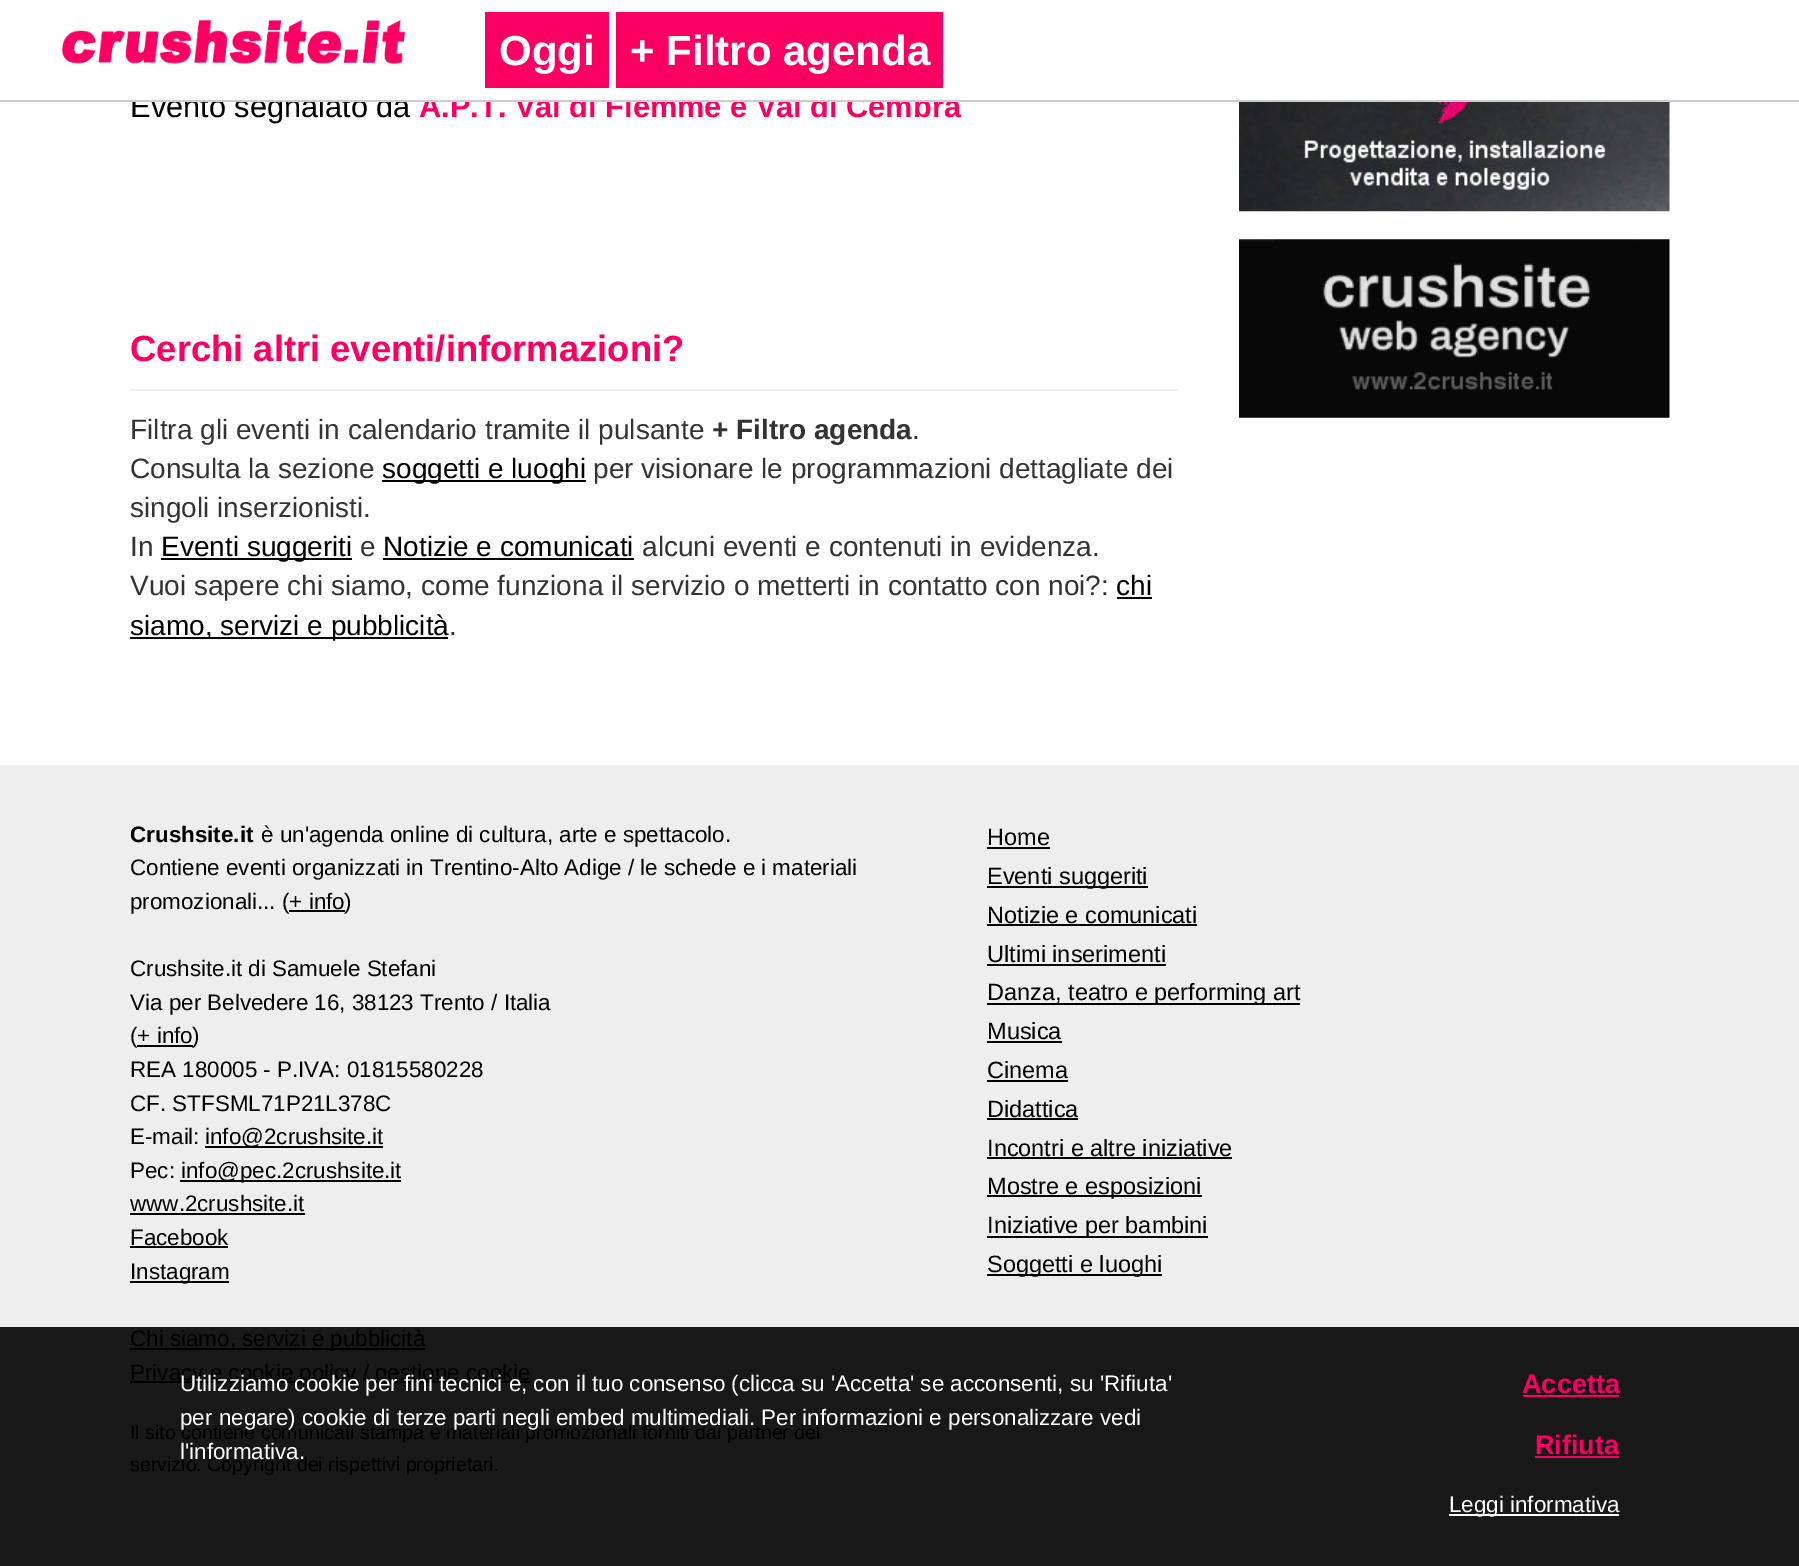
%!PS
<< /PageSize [1799 1566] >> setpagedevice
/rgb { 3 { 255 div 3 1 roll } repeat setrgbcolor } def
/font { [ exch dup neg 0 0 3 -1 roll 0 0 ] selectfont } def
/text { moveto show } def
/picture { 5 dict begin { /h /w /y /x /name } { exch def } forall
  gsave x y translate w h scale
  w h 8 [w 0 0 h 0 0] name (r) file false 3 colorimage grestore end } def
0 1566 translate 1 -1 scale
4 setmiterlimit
255 255 255 rgb
0 0 1799 1566 rectfill
(img_01.rgb) 62 20 343 44 picture
251 0 98 rgb
485 12 124 76 rectfill
616 12 327 76 rectfill
238 238 238 rgb
130 389 1048 2 rectfill
0 0 0 rgb
382 480 204 2 rectfill
161 558 191 2 rectfill
383 558 251 2 rectfill
1117 597 35 2 rectfill
130 637 318 2 rectfill
(img_02.rgb) 1239 102 431 110 picture
(img_03.rgb) 1239 239 431 179 picture
238 238 238 rgb
0 765 1799 562 rectfill
24 24 24 rgb
0 1327 1799 239 rectfill
0 0 0 rgb
289 910 56 2 rectfill
137 1045 56 2 rectfill
205 1146 178 2 rectfill
180 1180 221 2 rectfill
130 1213 175 2 rectfill
130 1246 98 2 rectfill
130 1281 99 2 rectfill
130 1348 295 2 rectfill
130 1381 225 2 rectfill
375 1381 155 2 rectfill
987 847 63 2 rectfill
987 886 161 2 rectfill
987 924 210 2 rectfill
987 964 179 2 rectfill
987 1003 313 2 rectfill
987 1041 75 2 rectfill
987 1080 81 2 rectfill
987 1118 91 2 rectfill
987 1157 245 2 rectfill
987 1195 215 2 rectfill
987 1236 221 2 rectfill
987 1274 175 2 rectfill
251 0 98 rgb
1523 1395 96 2 rectfill
1535 1456 84 2 rectfill
255 255 255 rgb
1449 1514 170 2 rectfill
/LiberationSans-Bold 42 font
(Oggi) 499 65 text
(+ Filtro agenda) 630 65 text
/LiberationSans-Regular 30.75 font
0 0 0 rgb
(Evento segnalato da) 130 117 text
/LiberationSans-Bold 30.75 font
251 0 98 rgb
(A.P.T. Val di Fiemme e Val di Cembra) 419 117 text
204 204 204 rgb
0 100 1799 2 rectfill
255 255 255 rgb
132 94 788 6 rectfill
/LiberationSans-Bold 36.4 font
251 0 98 rgb
(Cerchi altri eventi/informazioni?) 130 361 text
/LiberationSans-Regular 28 font
51 51 51 rgb
(Filtra gli eventi in calendario tramite il pulsante) 130 439 text
/LiberationSans-Bold 28 font
(+ Filtro agenda) 712 439 text
/LiberationSans-Regular 28 font
(.) 912 439 text
(Consulta la sezione) 130 478 text
0 0 0 rgb
(soggetti e luoghi) 382 478 text
51 51 51 rgb
(per visionare le programmazioni dettagliate dei) 593 478 text
(singoli inserzionisti.) 130 517 text
(In) 130 556 text
0 0 0 rgb
(Eventi suggeriti) 161 556 text
51 51 51 rgb
(e) 360 556 text
0 0 0 rgb
(Notizie e comunicati) 383 556 text
51 51 51 rgb
(alcuni eventi e contenuti in evidenza.) 642 556 text
(Vuoi sapere chi siamo, come funziona il servizio o metterti in contatto con noi?:) 130 595 text
0 0 0 rgb
(chi) 1116 595 text
(siamo, servizi e pubblicità) 130 635 text
51 51 51 rgb
(.) 449 635 text
/LiberationSans-Bold 22.4 font
0 0 0 rgb
(Crushsite.it) 130 842 text
/LiberationSans-Regular 22.4 font
(è un'agenda online di cultura, arte e spettacolo.) 261 842 text
(Contiene eventi organizzati in Trentino-Alto Adige / le schede e i materiali) 130 875 text
(promozionali... \(+ info) 130 909 text
(\)) 344 909 text
(Crushsite.it di Samuele Stefani) 130 976 text
(Via per Belvedere 16, 38123 Trento / Italia) 130 1010 text
(\(+ info) 130 1043 text
(\)) 192 1043 text
(REA 180005 - P.IVA: 01815580228) 130 1077 text
(CF. STFSML71P21L378C) 130 1111 text
(E-mail:) 130 1144 text
(info@2crushsite.it) 205 1144 text
(Pec:) 130 1178 text
(info@pec.2crushsite.it) 181 1178 text
(www.2crushsite.it) 130 1211 text
(Facebook) 130 1245 text
(Instagram) 130 1279 text
(Chi siamo, servizi e pubblicità) 130 1346 text
(Privacy e cookie policy /) 130 1380 text
(gestione cookie) 375 1380 text
/LiberationSans-Regular 19.6 font
(Il sito contiene comunicati stampa e materiali promozionali forniti dai partner del) 130 1439 text
(servizio. Copyright dei rispettivi proprietari.) 130 1471 text
/LiberationSans-Regular 23.5 font
(Home) 987 845 text
(Eventi suggeriti) 987 884 text
(Notizie e comunicati) 987 923 text
(Ultimi inserimenti) 987 962 text
(Danza, teatro e performing art) 987 1000 text
(Musica) 987 1039 text
(Cinema) 987 1078 text
(Didattica) 987 1117 text
(Incontri e altre iniziative) 987 1156 text
(Mostre e esposizioni) 987 1194 text
(Iniziative per bambini) 987 1233 text
(Soggetti e luoghi) 987 1272 text
/LiberationSans-Regular 22.4 font
255 255 255 rgb
(Utilizziamo cookie per fini tecnici e, con il tuo consenso \(clicca su 'Accetta' se acconsenti, su 'Rifiuta') 180 1391 text
(per negare\) cookie di terze parti negli embed multimediali. Per informazioni e personalizzare vedi) 180 1425 text
(l'informativa.) 180 1459 text
/LiberationSans-Bold 27 font
251 0 98 rgb
(Accetta) 1522 1393 text
(Rifiuta) 1535 1454 text
/LiberationSans-Regular 22.4 font
255 255 255 rgb
(Leggi informativa) 1449 1512 text
showpage
